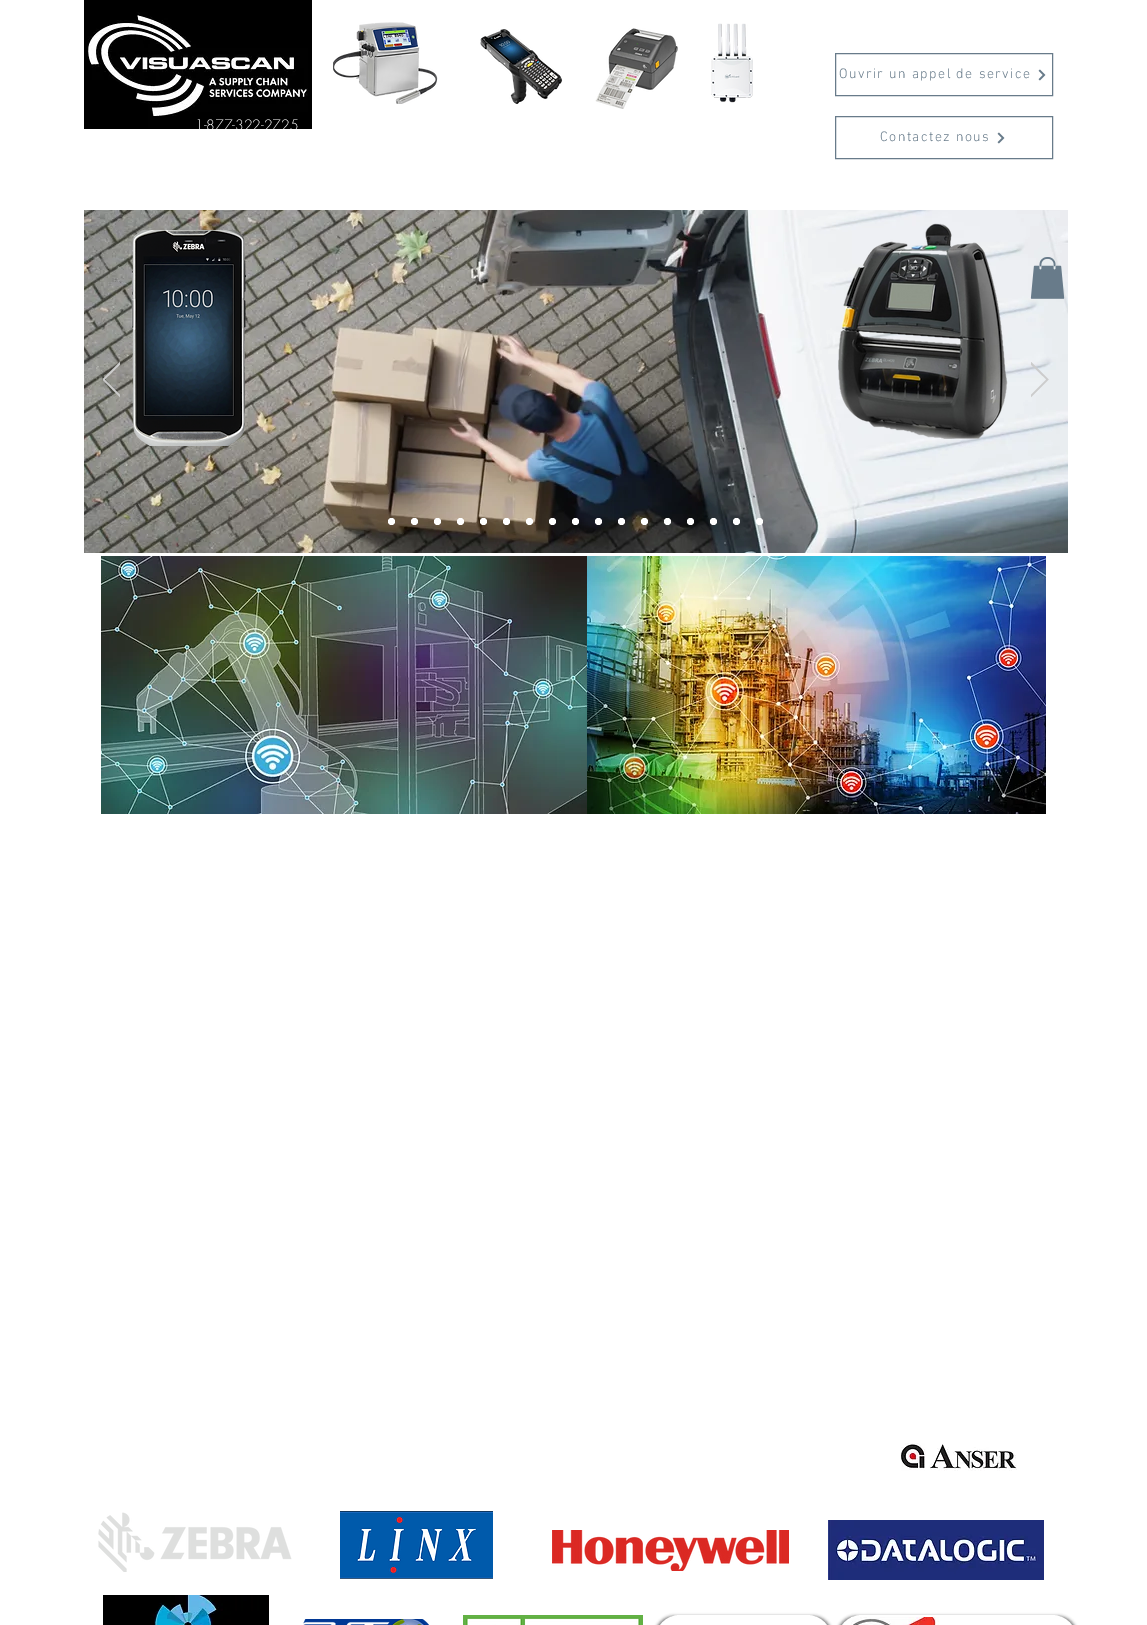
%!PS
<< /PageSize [1147 1625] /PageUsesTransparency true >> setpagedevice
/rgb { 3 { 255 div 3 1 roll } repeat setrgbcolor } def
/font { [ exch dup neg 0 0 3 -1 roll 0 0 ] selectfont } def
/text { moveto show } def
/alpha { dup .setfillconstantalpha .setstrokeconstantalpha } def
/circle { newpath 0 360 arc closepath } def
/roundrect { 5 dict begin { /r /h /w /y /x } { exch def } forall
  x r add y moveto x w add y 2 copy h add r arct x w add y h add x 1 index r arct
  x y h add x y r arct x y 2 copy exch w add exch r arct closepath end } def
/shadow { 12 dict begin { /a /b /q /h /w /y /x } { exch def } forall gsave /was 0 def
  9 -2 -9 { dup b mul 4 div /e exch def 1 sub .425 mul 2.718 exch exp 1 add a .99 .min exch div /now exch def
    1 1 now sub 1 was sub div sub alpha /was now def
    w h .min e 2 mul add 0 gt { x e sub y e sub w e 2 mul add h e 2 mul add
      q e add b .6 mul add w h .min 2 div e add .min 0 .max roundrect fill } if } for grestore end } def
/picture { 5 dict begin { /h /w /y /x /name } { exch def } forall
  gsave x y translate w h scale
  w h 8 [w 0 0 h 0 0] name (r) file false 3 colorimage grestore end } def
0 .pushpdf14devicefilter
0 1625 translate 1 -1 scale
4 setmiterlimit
255 255 255 rgb
0 0 1147 1625 rectfill
(img_01.rgb) 84 0 228 129 picture
(img_02.rgb) 333 22 105 82 picture
(img_03.rgb) 480 29 83 75 picture
(img_04.rgb) 595 28 83 81 picture
(img_05.rgb) 711 23 42 80 picture
104 123 138 rgb
835.5 53.5 217 42 rectstroke
(img_06.rgb) 1038 69 8 12 picture
835.5 116.5 217 42 rectstroke
(img_06.rgb) 997 132 8 12 picture
(img_07.rgb) 84 210 984 343 picture
(img_08.rgb) 131 230 115 216 picture
(img_09.rgb) 838 223 170 216 picture
gsave
103 362 17 36 rectclip
204 204 204 rgb
0.9 setlinewidth
120.5 397 moveto -17.5 -17.5 rlineto 17.5 -17.5 rlineto 0.5 1 rlineto -17 16.5 rlineto 17 17 rlineto closepath stroke
grestore
gsave
1031 362 18 36 rectclip
204 204 204 rgb
0.9 setlinewidth
1030.5 397 moveto 17.5 -17.5 rlineto -17.5 -17.5 rlineto -0.5 1 rlineto 17 16.5 rlineto -17 17 rlineto closepath stroke
grestore
255 255 255 rgb
391.5 521.5 3.5 circle fill
414.5 521.5 3.5 circle fill
437.5 521.5 3.5 circle fill
460.5 521.5 3.5 circle fill
483.5 521.5 3.5 circle fill
506.5 521.5 3.5 circle fill
529.5 521.5 3.5 circle fill
552.5 521.5 3.5 circle fill
575.5 521.5 3.5 circle fill
598.5 521.5 3.5 circle fill
621.5 521.5 3.5 circle fill
644.5 521.5 3.5 circle fill
667.5 521.5 3.5 circle fill
690.5 521.5 3.5 circle fill
713.5 521.5 3.5 circle fill
736.5 521.5 3.5 circle fill
759.5 521.5 3.5 circle fill
(img_10.rgb) 1030 257 35 42 picture
(img_11.rgb) 101 556 486 258 picture
(img_12.rgb) 587 556 459 258 picture
(img_13.rgb) 901 1443 116 28 picture
(img_14.rgb) 98 1512 194 60 picture
(img_15.rgb) 340 1511 153 68 picture
(img_16.rgb) 552 1530 237 41 picture
(img_17.rgb) 828 1520 216 60 picture
(img_18.rgb) 103 1595 166 30 picture
(img_19.rgb) 303 1619 126 6 picture
(img_20.rgb) 463 1615 180 10 picture
0 0 0 rgb
655 1616 177 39 25 1.5 0.5 shadow
255 255 255 rgb
656 1616 175 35 24 roundrect gsave fill grestore
2 setlinewidth
stroke
0 0 0 rgb
837 1616 240 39 25 1.5 0.5 shadow
255 255 255 rgb
838 1616 238 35 24 roundrect gsave fill grestore
stroke
(img_21.rgb) 851 1617 88 8 picture
/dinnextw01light-Light 14 font
104 123 138 rgb
839 78 moveto 1.4 0 (Ouvrir un appel de service) ashow
/futura-Light 14 font
255 255 255 rgb
(1-877-322-2725) 195 130 text
/dinnextw01light-Light 14 font
104 123 138 rgb
880 141 moveto 1.4 0 (Contactez nous) ashow
.poppdf14devicefilter showpage
